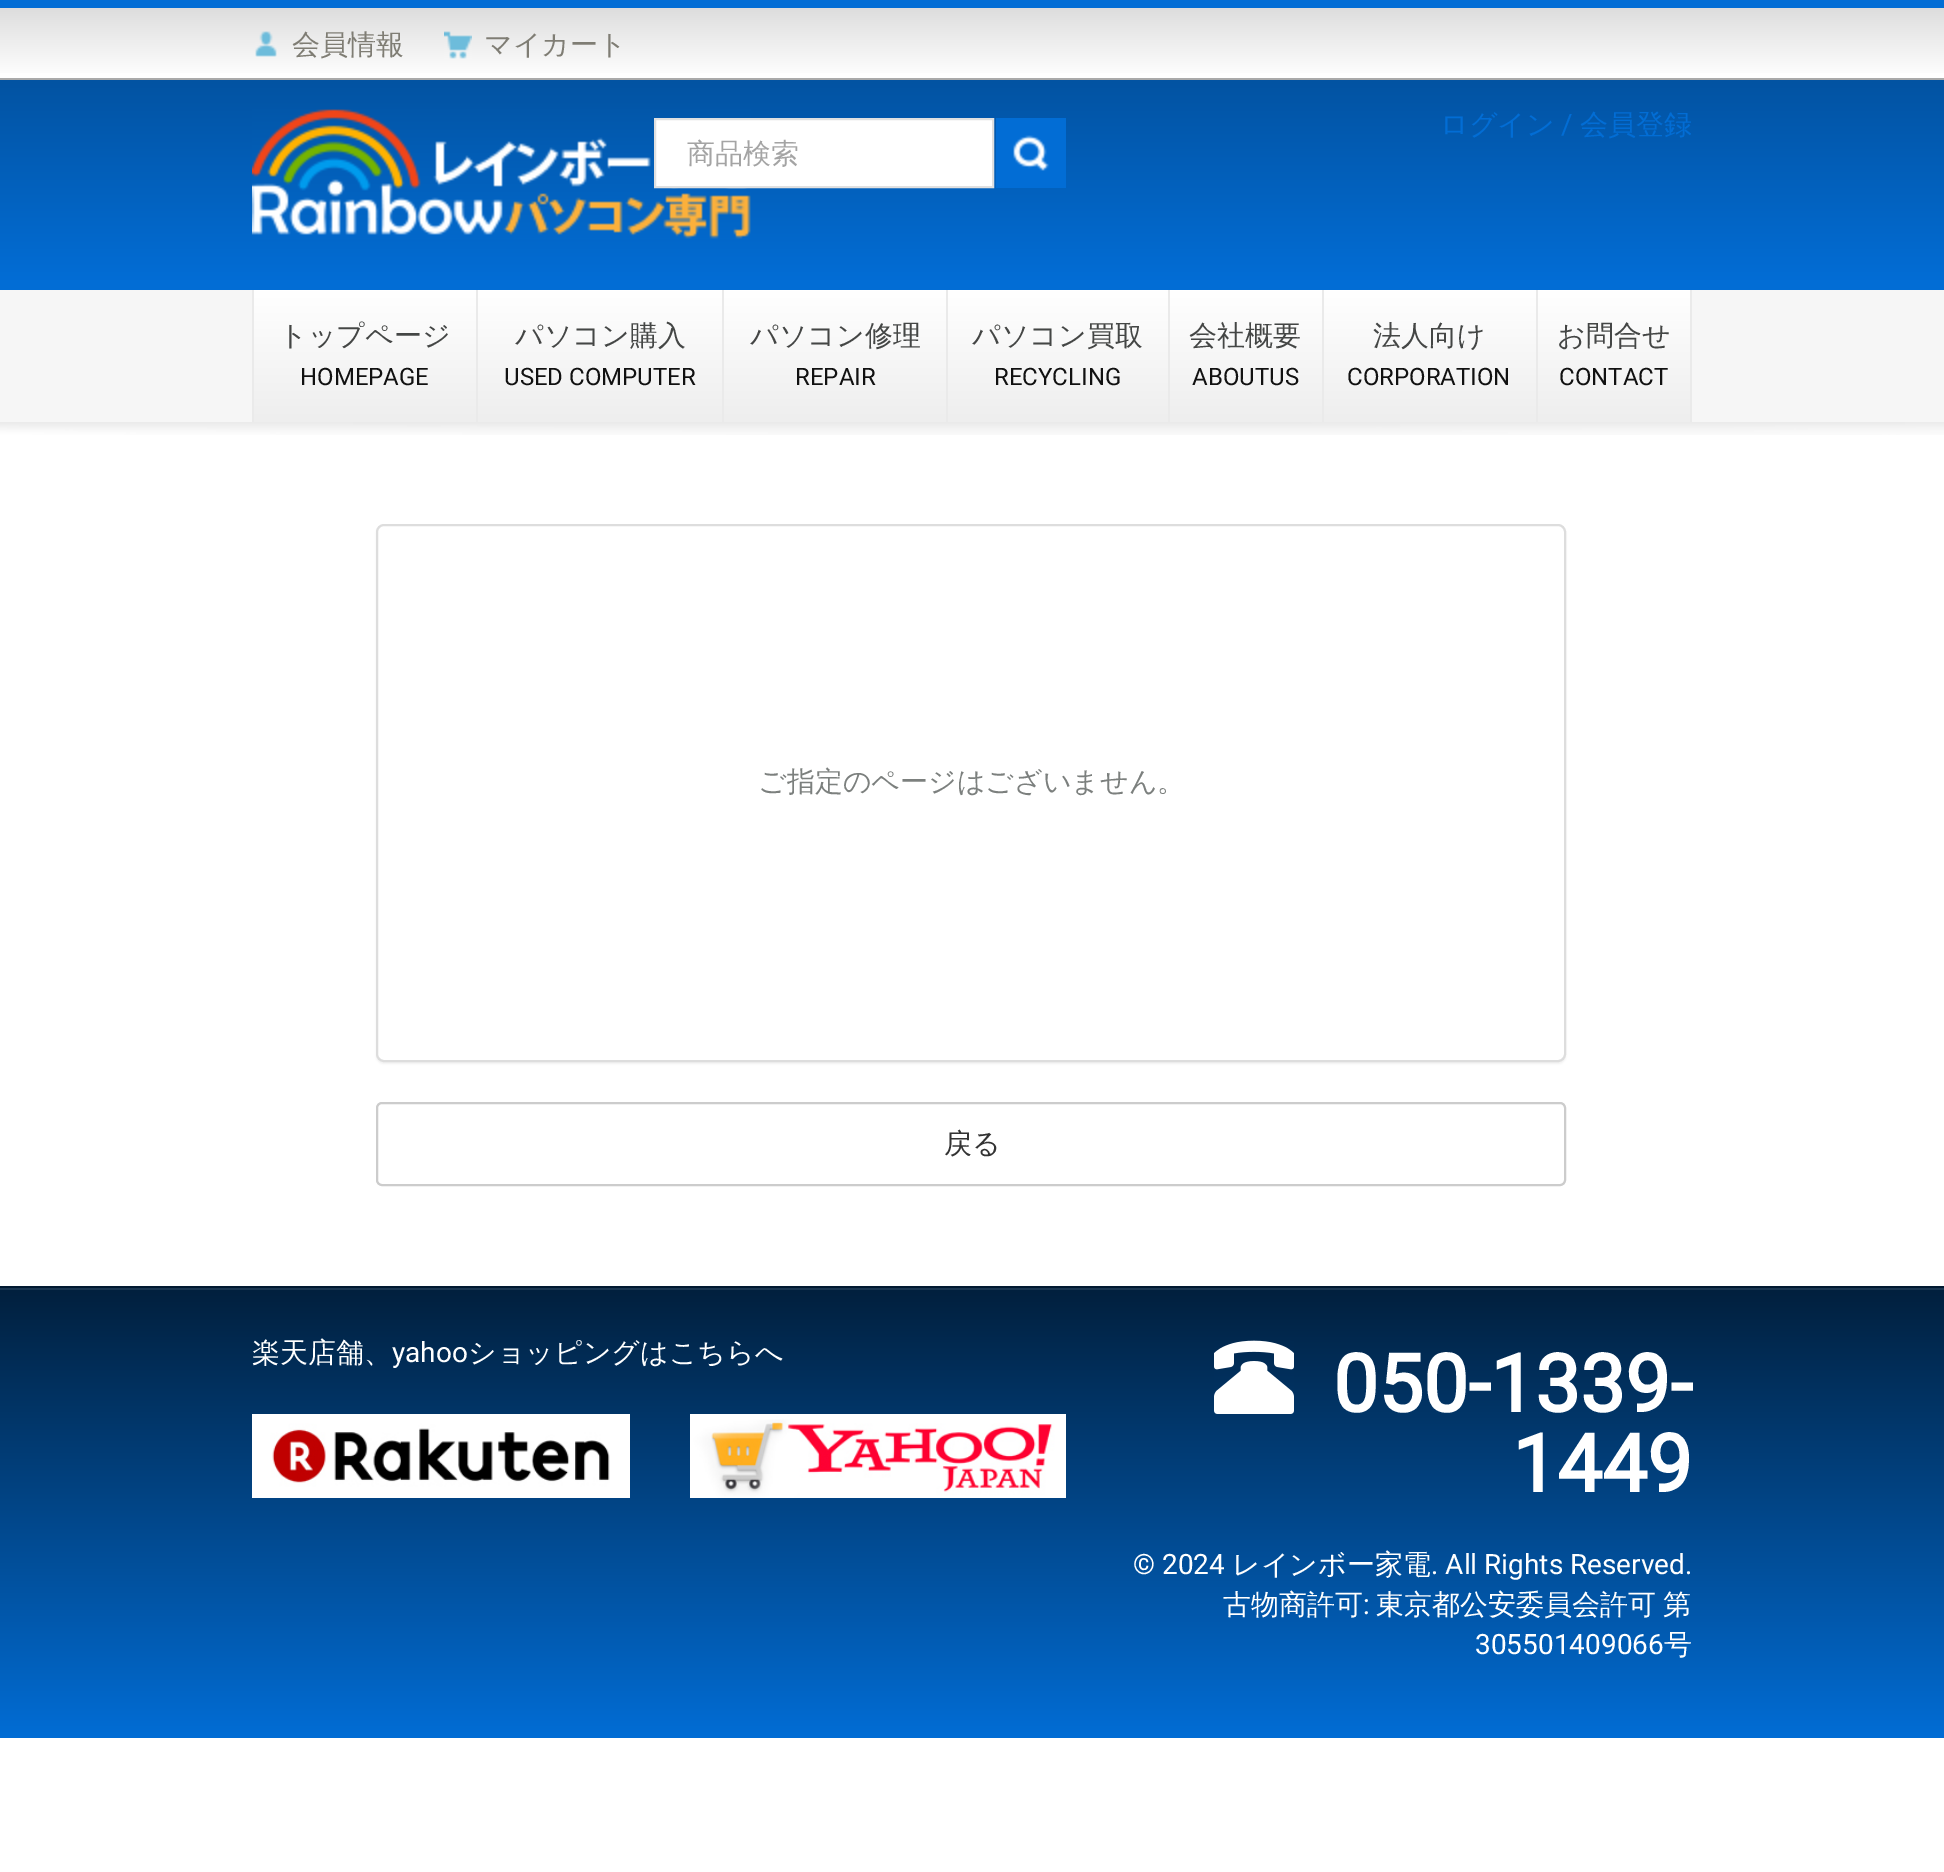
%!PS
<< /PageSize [1944 1872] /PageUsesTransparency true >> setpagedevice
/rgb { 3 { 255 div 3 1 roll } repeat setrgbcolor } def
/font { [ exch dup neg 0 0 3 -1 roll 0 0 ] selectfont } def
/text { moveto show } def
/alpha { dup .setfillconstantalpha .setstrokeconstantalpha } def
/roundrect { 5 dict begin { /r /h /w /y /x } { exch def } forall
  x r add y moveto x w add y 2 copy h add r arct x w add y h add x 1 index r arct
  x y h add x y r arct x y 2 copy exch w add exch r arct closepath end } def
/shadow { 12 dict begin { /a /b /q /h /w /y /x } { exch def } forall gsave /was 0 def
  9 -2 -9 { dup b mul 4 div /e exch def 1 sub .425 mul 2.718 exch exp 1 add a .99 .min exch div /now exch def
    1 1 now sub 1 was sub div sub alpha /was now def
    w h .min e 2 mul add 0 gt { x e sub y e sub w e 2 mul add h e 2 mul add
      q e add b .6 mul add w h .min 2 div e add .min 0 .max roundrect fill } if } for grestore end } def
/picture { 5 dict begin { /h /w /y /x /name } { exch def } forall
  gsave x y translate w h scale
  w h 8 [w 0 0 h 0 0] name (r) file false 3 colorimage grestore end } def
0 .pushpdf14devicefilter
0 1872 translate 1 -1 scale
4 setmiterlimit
255 255 255 rgb
0 0 1944 1872 rectfill
gsave 0 8 moveto 1944 0 rlineto 0 65 rlineto -1944 0 rlineto closepath clip newpath
<< /ShadingType 2 /ColorSpace /DeviceRGB /Coords [972 78 972 8] /Extend [true true] /Function << /FunctionType 2 /Domain [0 1] /C0 [1 1 1] /C1 [0.867 0.867 0.867] /N 1 >> >> shfill grestore
2 109 213 rgb
0 0 1944 8 rectfill
170 170 170 rgb
0 78 1944 2 rectfill
(img_01.rgb) 255 31 22 26 picture
(img_02.rgb) 444 31 28 28 picture
gsave 0 80 moveto 1944 0 rlineto 0 200 rlineto -1944 0 rlineto closepath clip newpath
<< /ShadingType 2 /ColorSpace /DeviceRGB /Coords [972 280 972 80] /Extend [true true] /Function << /FunctionType 2 /Domain [0 1] /C0 [0.008 0.427 0.835] /C1 [0.008 0.325 0.635] /N 1 >> >> shfill grestore
(img_03.rgb) 252 109 499 130 picture
255 255 255 rgb
655 119 moveto 338 0 rlineto 0 68 rlineto -338 0 rlineto closepath gsave fill grestore
224 224 224 rgb
2 setlinewidth
stroke
2 109 213 rgb
996 118 70 70 rectfill
(img_04.rgb) 1013 135 36 36 picture
246 246 246 rgb
0 290 1944 132 rectfill
2 109 213 rgb
0 280 1944 10 rectfill
gsave 254 290 moveto 222 0 rlineto 0 132 rlineto -222 0 rlineto closepath clip newpath
<< /ShadingType 2 /ColorSpace /DeviceRGB /Coords [365 422 365 290] /Extend [true true] /Function << /FunctionType 2 /Domain [0 1] /C0 [0.933 0.933 0.933] /C1 [1 1 1] /N 1 >> >> shfill grestore
234 234 234 rgb
476 290 2 132 rectfill
252 290 2 132 rectfill
gsave 478 290 moveto 244 0 rlineto 0 132 rlineto -244 0 rlineto closepath clip newpath
<< /ShadingType 2 /ColorSpace /DeviceRGB /Coords [600 422 600 290] /Extend [true true] /Function << /FunctionType 2 /Domain [0 1] /C0 [0.933 0.933 0.933] /C1 [1 1 1] /N 1 >> >> shfill grestore
722 290 2 132 rectfill
gsave 724 290 moveto 222 0 rlineto 0 132 rlineto -222 0 rlineto closepath clip newpath
<< /ShadingType 2 /ColorSpace /DeviceRGB /Coords [835 422 835 290] /Extend [true true] /Function << /FunctionType 2 /Domain [0 1] /C0 [0.933 0.933 0.933] /C1 [1 1 1] /N 1 >> >> shfill grestore
946 290 2 132 rectfill
gsave 948 290 moveto 220 0 rlineto 0 132 rlineto -220 0 rlineto closepath clip newpath
<< /ShadingType 2 /ColorSpace /DeviceRGB /Coords [1058 422 1058 290] /Extend [true true] /Function << /FunctionType 2 /Domain [0 1] /C0 [0.933 0.933 0.933] /C1 [1 1 1] /N 1 >> >> shfill grestore
1168 290 2 132 rectfill
gsave 1170 290 moveto 152 0 rlineto 0 132 rlineto -152 0 rlineto closepath clip newpath
<< /ShadingType 2 /ColorSpace /DeviceRGB /Coords [1246 422 1246 290] /Extend [true true] /Function << /FunctionType 2 /Domain [0 1] /C0 [0.933 0.933 0.933] /C1 [1 1 1] /N 1 >> >> shfill grestore
1322 290 2 132 rectfill
gsave 1324 290 moveto 212 0 rlineto 0 132 rlineto -212 0 rlineto closepath clip newpath
<< /ShadingType 2 /ColorSpace /DeviceRGB /Coords [1430 422 1430 290] /Extend [true true] /Function << /FunctionType 2 /Domain [0 1] /C0 [0.933 0.933 0.933] /C1 [1 1 1] /N 1 >> >> shfill grestore
1536 290 2 132 rectfill
gsave 1538 290 moveto 152 0 rlineto 0 132 rlineto -152 0 rlineto closepath clip newpath
<< /ShadingType 2 /ColorSpace /DeviceRGB /Coords [1614 422 1614 290] /Extend [true true] /Function << /FunctionType 2 /Domain [0 1] /C0 [0.933 0.933 0.933] /C1 [1 1 1] /N 1 >> >> shfill grestore
1690 290 2 132 rectfill
(img_05.rgb) 0 422 1944 13 picture
0 0 0 rgb
376 526 1190 538 8 1 0.05 shadow
255 255 255 rgb
377 525 1188 536 7 roundrect gsave fill grestore
221 221 221 rgb
stroke
204 204 204 rgb
377 1103 1188 82 5 roundrect stroke
gsave 0 1290 moveto 1944 0 rlineto 0 448 rlineto -1944 0 rlineto closepath clip newpath
<< /ShadingType 2 /ColorSpace /DeviceRGB /Coords [972 1738 972 1286] /Extend [true true] /Function << /FunctionType 2 /Domain [0 1] /C0 [0.008 0.427 0.835] /C1 [0.004 0.122 0.239] /N 1 >> >> shfill grestore
26 54 81 rgb
0 1288 1944 2 rectfill
1 25 49 rgb
0 1286 1944 2 rectfill
(img_06.rgb) 252 1414 378 84 picture
(img_07.rgb) 690 1414 376 84 picture
(img_08.rgb) 1214 1340 80 74 picture
/WenQuanYiZenHei-Medium 28 font
127 125 116 rgb
(会員情報) 292 54 text
(マイカート) 484 54 text
2 109 213 rgb
(ログイン) 1440 134 text
/Roboto-Regular 28 font
(/) 1561 134 text
/WenQuanYiZenHei-Medium 28 font
(会員登録) 1580 134 text
164 164 164 rgb
(商品検索) 687 163 text
68 70 69 rgb
(トップページ) 279 345 text
/Roboto-Regular 24 font
17 17 17 rgb
(HOMEPAGE) 300 385 text
/WenQuanYiZenHei-Medium 28 font
68 70 69 rgb
(パソコン購入) 515 345 text
/Roboto-Regular 24 font
17 17 17 rgb
(USED COMPUTER) 504 385 text
/WenQuanYiZenHei-Medium 28 font
68 70 69 rgb
(パソコン修理) 750 345 text
/Roboto-Regular 24 font
17 17 17 rgb
(REPAIR) 795 385 text
/WenQuanYiZenHei-Medium 28 font
68 70 69 rgb
(パソコン買取) 972 345 text
/Roboto-Regular 24 font
17 17 17 rgb
(RECYCLING) 994 385 text
/WenQuanYiZenHei-Medium 28 font
68 70 69 rgb
(会社概要) 1189 345 text
/Roboto-Regular 24 font
17 17 17 rgb
(ABOUTUS) 1192 385 text
/WenQuanYiZenHei-Medium 28 font
68 70 69 rgb
(法人向け) 1373 345 text
/Roboto-Regular 24 font
17 17 17 rgb
(CORPORATION) 1347 385 text
/WenQuanYiZenHei-Medium 28 font
68 70 69 rgb
(お問合せ) 1557 345 text
/Roboto-Regular 24 font
17 17 17 rgb
(CONTACT) 1559 385 text
/WenQuanYiZenHei-Medium 28 font
124 128 126 rgb
(ご指定のページはございません。) 758 791 text
51 51 51 rgb
(戻る) 944 1153 text
255 255 255 rgb
(楽天店舗、) 252 1362 text
/Roboto-Regular 28 font
(yahoo) 392 1362 text
/WenQuanYiZenHei-Medium 28 font
(ショッピングはこちらへ) 468 1362 text
/Roboto-Bold 80 font
(050-1339-) 1333 1412 text
(1449) 1512 1492 text
/Roboto-Regular 28 font
(© 2024) 1133 1574 text
/WenQuanYiZenHei-Medium 28 font
(レインボー家電) 1232 1574 text
/Roboto-Regular 28 font
(. All Rights Reserved.) 1431 1574 text
/WenQuanYiZenHei-Medium 28 font
(古物商許可) 1223 1614 text
/Roboto-Regular 28 font
(:) 1363 1614 text
/WenQuanYiZenHei-Medium 28 font
1376 1614 moveto -1 0 32 (東京都公安委員会許可 第) widthshow
/Roboto-Regular 28 font
(305501409066) 1475 1654 text
/WenQuanYiZenHei-Medium 28 font
(号) 1664 1654 text
.poppdf14devicefilter showpage
